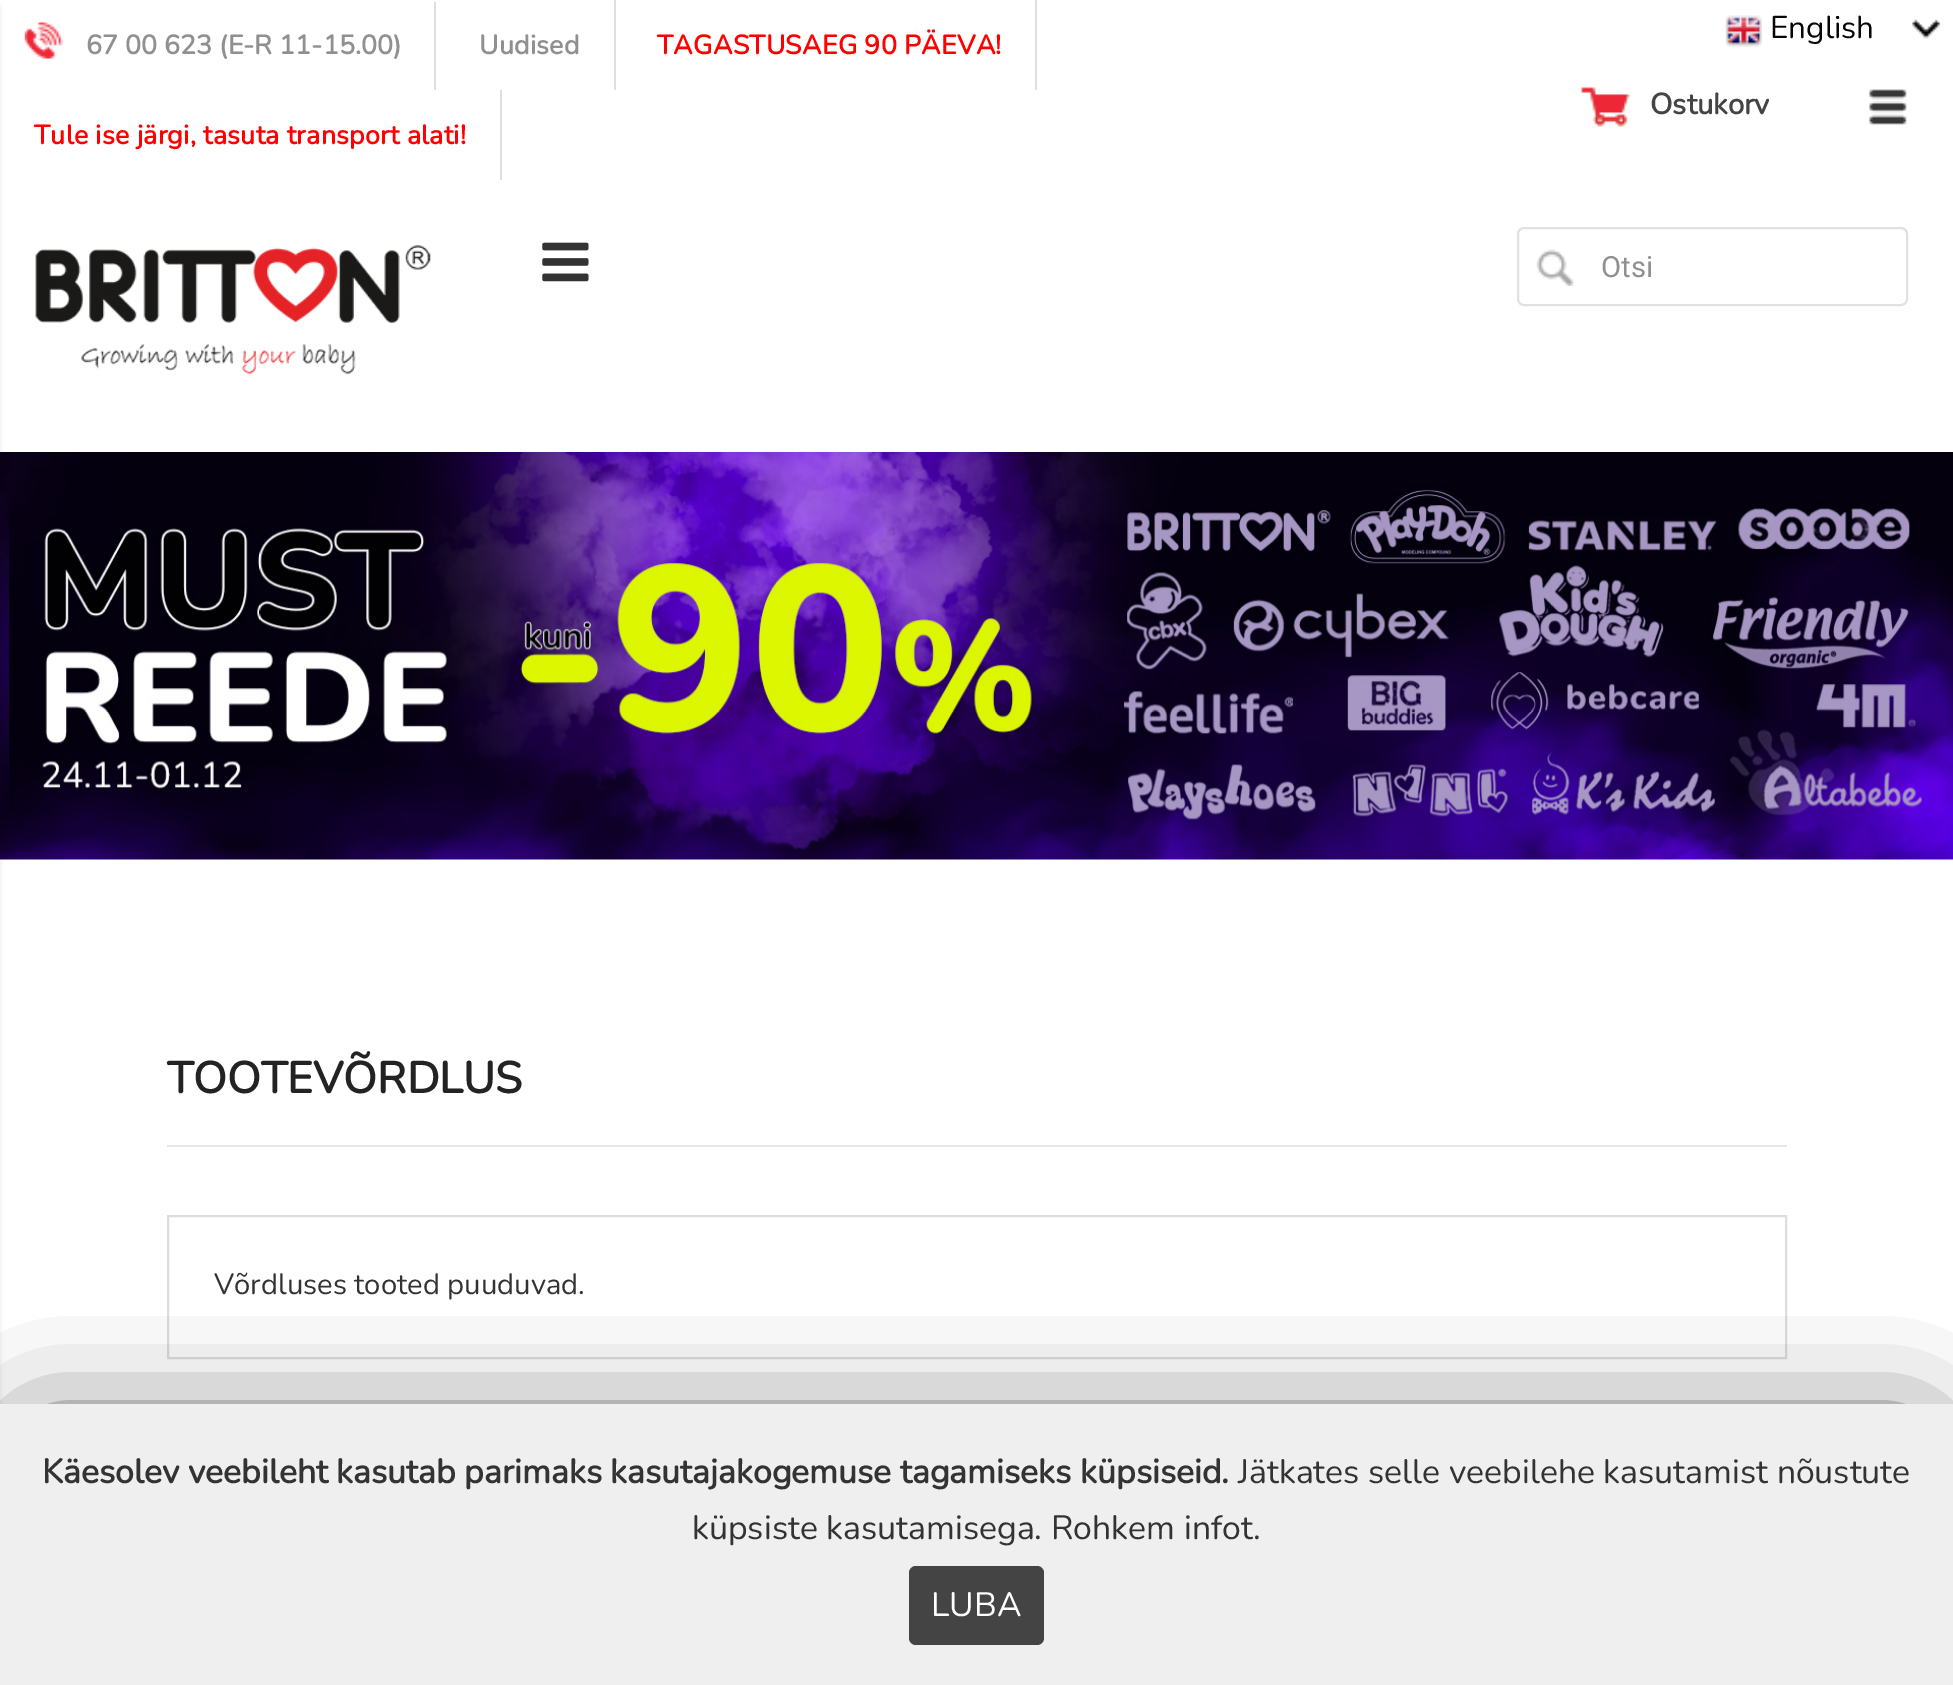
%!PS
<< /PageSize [1953 1685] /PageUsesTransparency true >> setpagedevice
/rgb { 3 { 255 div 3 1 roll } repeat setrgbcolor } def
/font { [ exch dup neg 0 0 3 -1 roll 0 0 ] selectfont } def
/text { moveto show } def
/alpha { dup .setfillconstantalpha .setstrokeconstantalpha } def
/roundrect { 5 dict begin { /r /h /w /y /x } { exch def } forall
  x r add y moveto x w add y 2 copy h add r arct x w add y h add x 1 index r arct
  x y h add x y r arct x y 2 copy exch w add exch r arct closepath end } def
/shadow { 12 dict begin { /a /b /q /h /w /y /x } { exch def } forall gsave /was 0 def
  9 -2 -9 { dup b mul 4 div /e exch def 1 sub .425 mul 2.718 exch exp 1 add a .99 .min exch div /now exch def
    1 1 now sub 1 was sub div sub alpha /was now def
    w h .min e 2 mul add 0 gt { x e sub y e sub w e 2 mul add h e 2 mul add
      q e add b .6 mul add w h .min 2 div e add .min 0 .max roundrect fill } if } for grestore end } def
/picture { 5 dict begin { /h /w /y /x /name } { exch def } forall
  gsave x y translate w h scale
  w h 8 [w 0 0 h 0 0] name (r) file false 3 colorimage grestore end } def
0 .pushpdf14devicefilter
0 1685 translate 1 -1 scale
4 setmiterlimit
255 255 255 rgb
0 0 1953 1685 rectfill
223 223 223 rgb
434 2 2 88 rectfill
(img_01.rgb) 24 22 39 37 picture
614 0 2 90 rectfill
1035 0 2 90 rectfill
500 90 2 90 rectfill
(img_02.rgb) 1581 87 49 40 picture
(img_03.rgb) 1869 89 38 36 picture
(img_07.rgb) 0 452 1953 408 picture
0 0 0 rgb
-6 7 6 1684 0 2 0.1 shadow
(img_04.rgb) 542 242 47 40 picture
(img_05.rgb) 35 245 396 129 picture
225 225 225 rgb
2 setlinewidth
1518 228 389 77 6 roundrect stroke
(img_06.rgb) 1536 249 38 37 picture
(img_08.rgb) 1912 19 29 20 picture
(img_09.rgb) 1725 15 37 32 picture
229 230 230 rgb
167 1145 1620 2 rectfill
221 221 221 rgb
168 1216 1618 142 rectstroke
0 0 0 rgb
38 1442 1877 205 0 56 1 shadow
239 239 239 rgb
0 1404 1953 281 rectfill
68 68 68 rgb
909 1566 135 79 7 roundrect fill
/Nunito-Bold 26.75 font
144 144 144 rgb
(67 00 623 \(E-R 11-15.00\)) 86 54 text
479 54 moveto 0.25 0 (Uudised) ashow
255 0 0 rgb
657 54 moveto 0.25 0 (TAGASTUSAEG 90 PÄEVA!) ashow
34 144 moveto 0.25 0 (Tule ise järgi, tasuta transport alati!) ashow
/Nunito-Bold 29.25 font
68 68 68 rgb
(Ostukorv) 1650 114 text
/Roboto-Regular 29.25 font
144 144 144 rgb
(Otsi) 1601 277 text
/Nunito-ExtraLight 31.5 font
6 6 6 rgb
(English) 1770 38 text
/Nunito-Bold 44 font
35 35 35 rgb
(TOOTEVÕRDLUS) 167 1093 text
/Nunito-ExtraLight 29.25 font
51 51 51 rgb
(Võrdluses tooted puuduvad.) 214 1294 text
/Nunito-Bold 33.75 font
(Käesolev veebileht kasutab parimaks kasutajakogemuse tagamiseks küpsiseid.) 42 1483 text
/Nunito-ExtraLight 33.75 font
(Jätkates selle veebilehe kasutamist nõustute) 1238 1483 text
(küpsiste kasutamisega. Rohkem infot.) 692 1539 text
255 255 255 rgb
(LUBA) 931 1616 text
.poppdf14devicefilter showpage
